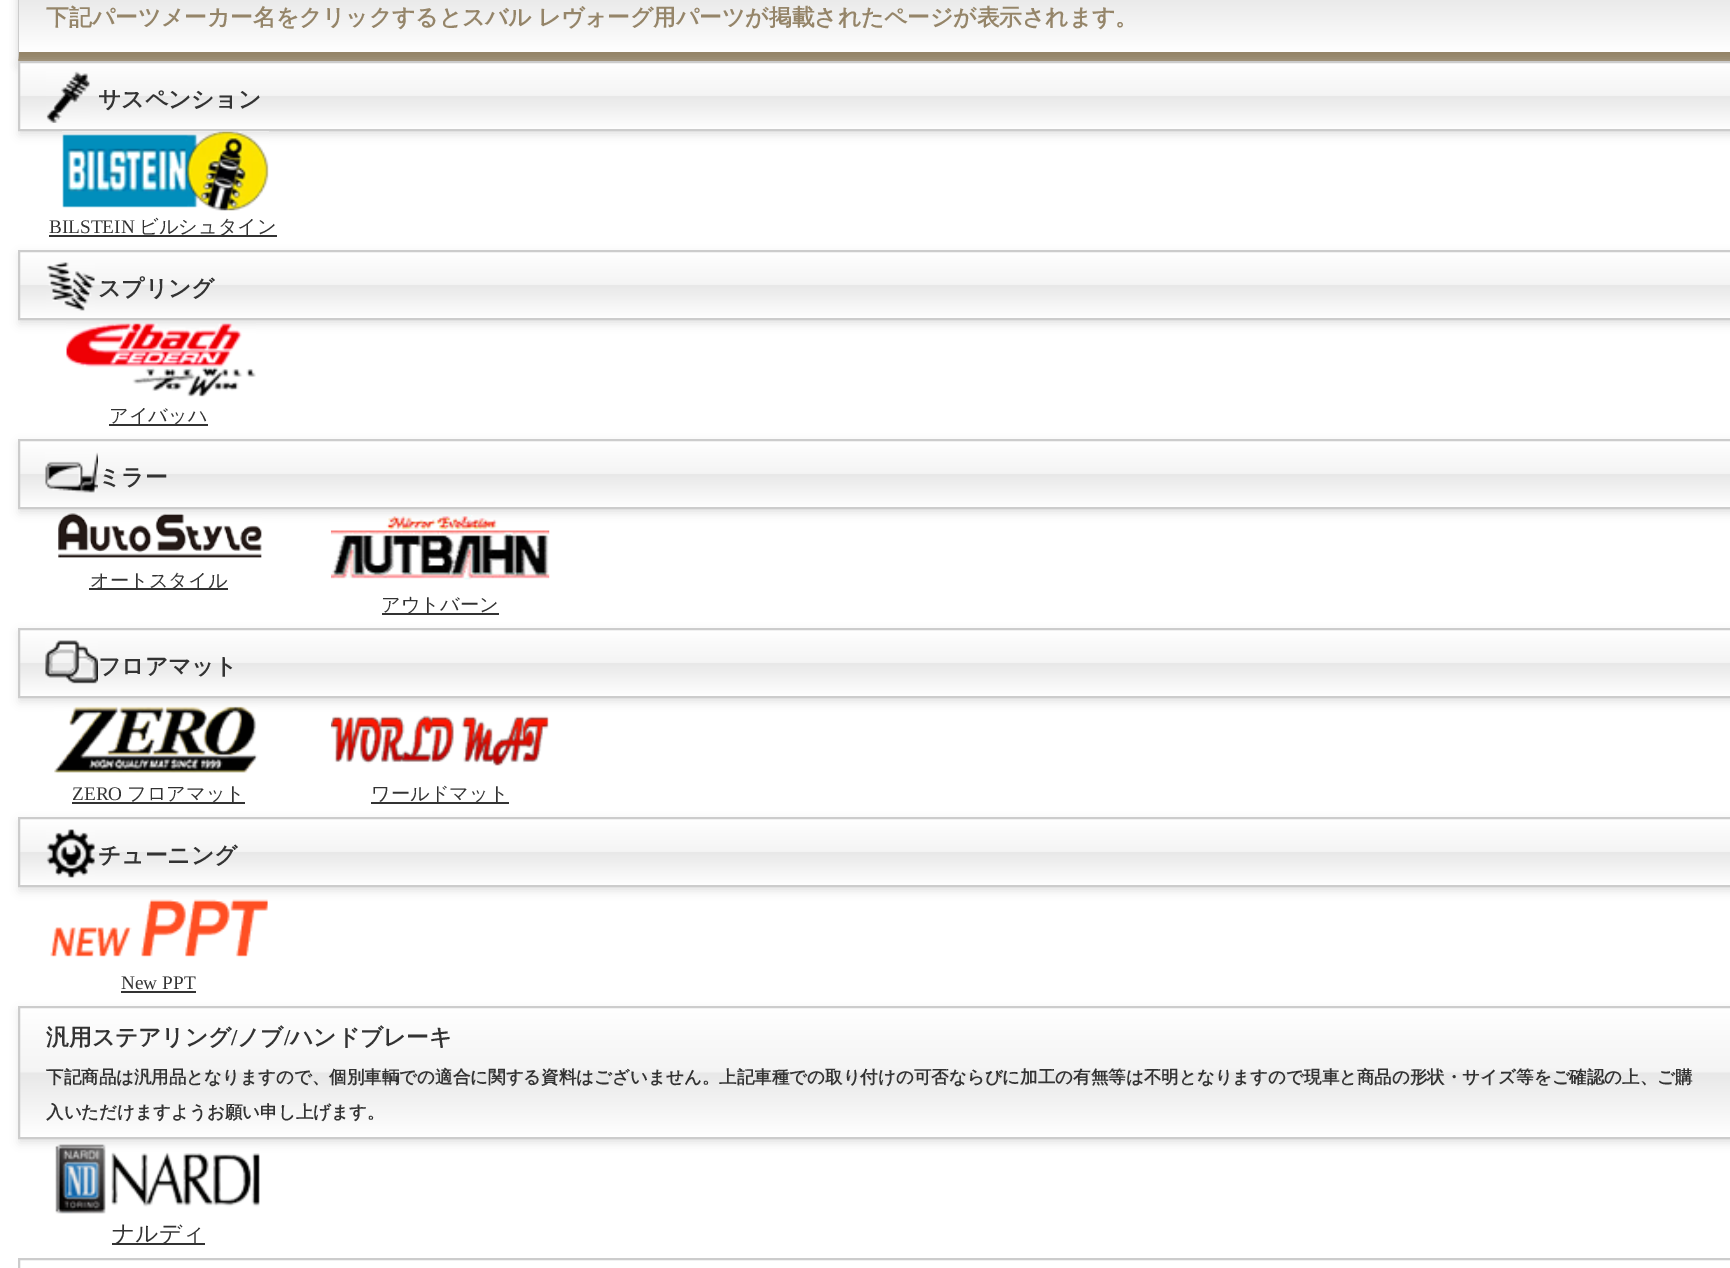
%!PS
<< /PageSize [1730 1268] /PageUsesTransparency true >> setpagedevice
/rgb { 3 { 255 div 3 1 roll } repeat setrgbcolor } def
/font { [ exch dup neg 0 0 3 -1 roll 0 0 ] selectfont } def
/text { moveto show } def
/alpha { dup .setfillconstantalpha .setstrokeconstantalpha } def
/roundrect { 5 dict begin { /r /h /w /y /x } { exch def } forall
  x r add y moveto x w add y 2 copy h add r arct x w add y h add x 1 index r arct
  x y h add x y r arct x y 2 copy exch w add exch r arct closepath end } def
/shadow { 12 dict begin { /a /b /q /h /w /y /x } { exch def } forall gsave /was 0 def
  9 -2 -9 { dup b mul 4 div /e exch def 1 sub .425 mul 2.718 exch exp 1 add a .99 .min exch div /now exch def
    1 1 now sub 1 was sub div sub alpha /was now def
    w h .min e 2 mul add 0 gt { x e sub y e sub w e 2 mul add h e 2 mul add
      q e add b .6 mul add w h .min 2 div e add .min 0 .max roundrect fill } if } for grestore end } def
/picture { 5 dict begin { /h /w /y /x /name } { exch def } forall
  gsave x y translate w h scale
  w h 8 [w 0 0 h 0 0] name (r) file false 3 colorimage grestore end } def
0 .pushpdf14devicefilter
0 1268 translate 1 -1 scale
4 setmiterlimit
255 255 255 rgb
0 0 1730 1268 rectfill
204 204 204 rgb
19 -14 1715 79 0 4.5 1 shadow
gsave 19 0 moveto 1711 0 rlineto 0 52 rlineto -1711 0 rlineto closepath clip newpath
<< /ShadingType 2 /ColorSpace /DeviceRGB /Coords [875 -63 875 53] /Extend [true true] /Function << /FunctionType 3 /Domain [0 1] /Functions [<< /FunctionType 2 /Domain [0 1] /C0 [1 1 1] /C1 [0.957 0.957 0.957] /N 1 >> << /FunctionType 2 /Domain [0 1] /C0 [0.957 0.957 0.957] /C1 [0.91 0.91 0.91] /N 1 >> << /FunctionType 2 /Domain [0 1] /C0 [0.91 0.91 0.91] /C1 [1 1 1] /N 1 >>] /Bounds [0.49 0.5] /Encode [0 1 0 1 0 1] >> >> shfill grestore
149 133 105 rgb
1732 61 moveto -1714 0 rlineto 1 -9 rlineto 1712 0 rlineto closepath fill
204 204 204 rgb
18 61 moveto 0 -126 rlineto 1 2 rlineto 0 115 rlineto closepath fill
226 226 226 rgb
19 65 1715 70 0 4.5 1 shadow
gsave 20 63 moveto 1710 0 rlineto 0 66 rlineto -1710 0 rlineto closepath clip newpath
<< /ShadingType 2 /ColorSpace /DeviceRGB /Coords [875 63 875 130] /Extend [true true] /Function << /FunctionType 3 /Domain [0 1] /Functions [<< /FunctionType 2 /Domain [0 1] /C0 [1 1 1] /C1 [0.957 0.957 0.957] /N 1 >> << /FunctionType 2 /Domain [0 1] /C0 [0.957 0.957 0.957] /C1 [0.91 0.91 0.91] /N 1 >> << /FunctionType 2 /Domain [0 1] /C0 [0.91 0.91 0.91] /C1 [1 1 1] /N 1 >>] /Bounds [0.49 0.5] /Encode [0 1 0 1 0 1] >> >> shfill grestore
204 204 204 rgb
2 setlinewidth
19 62 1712 68 rectstroke
(img_01.rgb) 46 71 44 52 picture
(img_02.rgb) 62 131 207 80 picture
51 51 51 rgb
49 235 228 2 rectfill
226 226 226 rgb
19 254 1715 70 0 4.5 1 shadow
gsave 20 252 moveto 1710 0 rlineto 0 66 rlineto -1710 0 rlineto closepath clip newpath
<< /ShadingType 2 /ColorSpace /DeviceRGB /Coords [875 252 875 319] /Extend [true true] /Function << /FunctionType 3 /Domain [0 1] /Functions [<< /FunctionType 2 /Domain [0 1] /C0 [1 1 1] /C1 [0.957 0.957 0.957] /N 1 >> << /FunctionType 2 /Domain [0 1] /C0 [0.957 0.957 0.957] /C1 [0.91 0.91 0.91] /N 1 >> << /FunctionType 2 /Domain [0 1] /C0 [0.91 0.91 0.91] /C1 [1 1 1] /N 1 >>] /Bounds [0.49 0.5] /Encode [0 1 0 1 0 1] >> >> shfill grestore
204 204 204 rgb
19 251 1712 68 rectstroke
(img_03.rgb) 46 262 49 49 picture
(img_04.rgb) 66 323 190 74 picture
51 51 51 rgb
109 424 99 2 rectfill
226 226 226 rgb
19 443 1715 70 0 4.5 1 shadow
gsave 20 441 moveto 1710 0 rlineto 0 66 rlineto -1710 0 rlineto closepath clip newpath
<< /ShadingType 2 /ColorSpace /DeviceRGB /Coords [875 441 875 508] /Extend [true true] /Function << /FunctionType 3 /Domain [0 1] /Functions [<< /FunctionType 2 /Domain [0 1] /C0 [1 1 1] /C1 [0.957 0.957 0.957] /N 1 >> << /FunctionType 2 /Domain [0 1] /C0 [0.957 0.957 0.957] /C1 [0.91 0.91 0.91] /N 1 >> << /FunctionType 2 /Domain [0 1] /C0 [0.91 0.91 0.91] /C1 [1 1 1] /N 1 >>] /Bounds [0.49 0.5] /Encode [0 1 0 1 0 1] >> >> shfill grestore
204 204 204 rgb
19 440 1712 68 rectstroke
(img_05.rgb) 45 452 53 41 picture
(img_06.rgb) 58 513 204 45 picture
51 51 51 rgb
89 588 139 2 rectfill
(img_07.rgb) 330 515 220 65 picture
382 613 117 2 rectfill
226 226 226 rgb
19 632 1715 70 0 4.5 1 shadow
gsave 20 630 moveto 1710 0 rlineto 0 66 rlineto -1710 0 rlineto closepath clip newpath
<< /ShadingType 2 /ColorSpace /DeviceRGB /Coords [875 630 875 697] /Extend [true true] /Function << /FunctionType 3 /Domain [0 1] /Functions [<< /FunctionType 2 /Domain [0 1] /C0 [1 1 1] /C1 [0.957 0.957 0.957] /N 1 >> << /FunctionType 2 /Domain [0 1] /C0 [0.957 0.957 0.957] /C1 [0.91 0.91 0.91] /N 1 >> << /FunctionType 2 /Domain [0 1] /C0 [0.91 0.91 0.91] /C1 [1 1 1] /N 1 >>] /Bounds [0.49 0.5] /Encode [0 1 0 1 0 1] >> >> shfill grestore
204 204 204 rgb
19 629 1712 68 rectstroke
(img_08.rgb) 45 640 53 44 picture
(img_09.rgb) 54 706 204 67 picture
51 51 51 rgb
72 802 173 2 rectfill
(img_10.rgb) 330 715 219 51 picture
371 802 138 2 rectfill
226 226 226 rgb
19 821 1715 70 0 4.5 1 shadow
gsave 20 819 moveto 1710 0 rlineto 0 66 rlineto -1710 0 rlineto closepath clip newpath
<< /ShadingType 2 /ColorSpace /DeviceRGB /Coords [875 819 875 886] /Extend [true true] /Function << /FunctionType 3 /Domain [0 1] /Functions [<< /FunctionType 2 /Domain [0 1] /C0 [1 1 1] /C1 [0.957 0.957 0.957] /N 1 >> << /FunctionType 2 /Domain [0 1] /C0 [0.957 0.957 0.957] /C1 [0.91 0.91 0.91] /N 1 >> << /FunctionType 2 /Domain [0 1] /C0 [0.91 0.91 0.91] /C1 [1 1 1] /N 1 >>] /Bounds [0.49 0.5] /Encode [0 1 0 1 0 1] >> >> shfill grestore
204 204 204 rgb
19 818 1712 68 rectstroke
(img_11.rgb) 46 829 49 49 picture
(img_12.rgb) 50 899 218 58 picture
51 51 51 rgb
121 991 75 2 rectfill
226 226 226 rgb
19 1010 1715 133 0 4.5 1 shadow
gsave 20 1008 moveto 1710 0 rlineto 0 129 rlineto -1710 0 rlineto closepath clip newpath
<< /ShadingType 2 /ColorSpace /DeviceRGB /Coords [875 1008 875 1138] /Extend [true true] /Function << /FunctionType 3 /Domain [0 1] /Functions [<< /FunctionType 2 /Domain [0 1] /C0 [1 1 1] /C1 [0.957 0.957 0.957] /N 1 >> << /FunctionType 2 /Domain [0 1] /C0 [0.957 0.957 0.957] /C1 [0.91 0.91 0.91] /N 1 >> << /FunctionType 2 /Domain [0 1] /C0 [0.91 0.91 0.91] /C1 [1 1 1] /N 1 >>] /Bounds [0.49 0.5] /Encode [0 1 0 1 0 1] >> >> shfill grestore
204 204 204 rgb
19 1007 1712 131 rectstroke
(img_13.rgb) 55 1144 205 70 picture
51 51 51 rgb
112 1243 93 2 rectfill
204 204 204 rgb
19 1259 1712 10 rectstroke
/WenQuanYiZenHei-Bold 22.75 font
149 133 105 rgb
46 25 moveto -1 0 32 (下記パーツメーカー名をクリックするとスバル レヴォーグ用パーツが掲載されたページが表示されます。) widthshow
51 51 51 rgb
(サスペンション) 98 107 text
/LiberationSerif-Regular 19.25 font
(BILSTEIN) 49 233 text
/WenQuanYiZenHei-Medium 19.25 font
(ビルシュタイン) 139 233 text
/WenQuanYiZenHei-Bold 22.75 font
(スプリング) 98 296 text
/WenQuanYiZenHei-Medium 19.25 font
(アイバッハ) 109 422 text
/WenQuanYiZenHei-Bold 22.75 font
(ミラー) 98 485 text
/WenQuanYiZenHei-Medium 19.25 font
(オートスタイル) 90 587 text
(アウトバーン) 381 611 text
/WenQuanYiZenHei-Bold 22.75 font
(フロアマット) 98 674 text
/LiberationSerif-Regular 19.25 font
(ZERO) 72 800 text
/WenQuanYiZenHei-Medium 19.25 font
(フロアマット) 127 800 text
(ワールドマット) 371 800 text
/WenQuanYiZenHei-Bold 22.75 font
(チューニング) 98 863 text
/LiberationSerif-Regular 19.25 font
(New PPT) 121 989 text
/WenQuanYiZenHei-Bold 22.75 font
(汎用ステアリング) 46 1045 text
/LiberationSerif-Bold 22.75 font
(/) 231 1045 text
/WenQuanYiZenHei-Bold 22.75 font
(ノブ) 237 1045 text
/LiberationSerif-Bold 22.75 font
(/) 284 1045 text
/WenQuanYiZenHei-Bold 22.75 font
(ハンドブレーキ) 290 1045 text
/WenQuanYiZenHei-Bold 17.5 font
(下記商品は汎用品となりますので、個別車輌での適合に関する資料はございません。上記車種での取り付けの可否ならびに加工の有無等は不明となりますので現車と商品の形状・サイズ等をご確認の上、ご購) 46 1083 text
(入いただけますようお願い申し上げます。) 46 1118 text
/WenQuanYiZenHei-Medium 22.75 font
(ナルディ) 112 1241 text
.poppdf14devicefilter showpage
